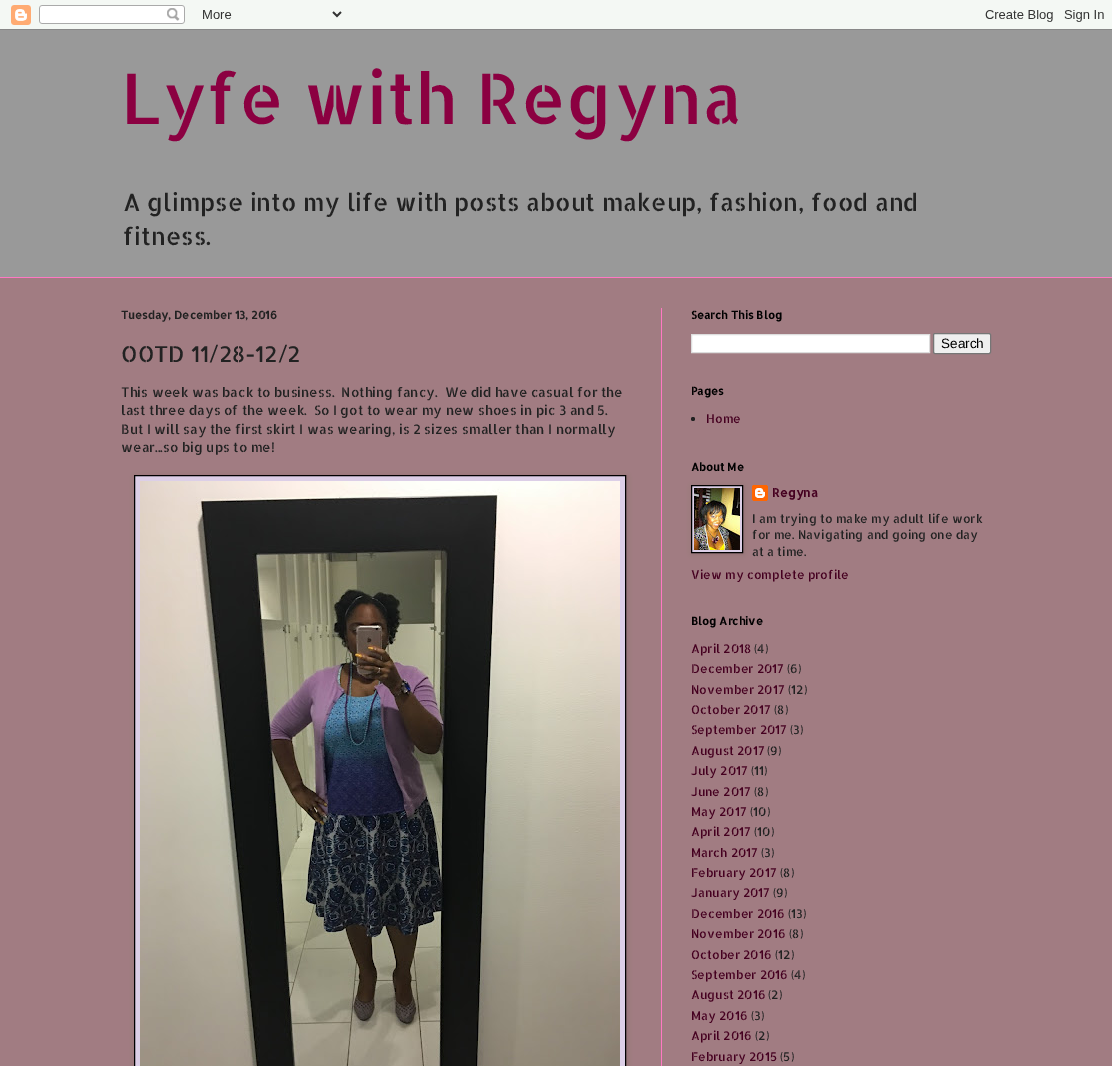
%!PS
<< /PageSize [1112 1066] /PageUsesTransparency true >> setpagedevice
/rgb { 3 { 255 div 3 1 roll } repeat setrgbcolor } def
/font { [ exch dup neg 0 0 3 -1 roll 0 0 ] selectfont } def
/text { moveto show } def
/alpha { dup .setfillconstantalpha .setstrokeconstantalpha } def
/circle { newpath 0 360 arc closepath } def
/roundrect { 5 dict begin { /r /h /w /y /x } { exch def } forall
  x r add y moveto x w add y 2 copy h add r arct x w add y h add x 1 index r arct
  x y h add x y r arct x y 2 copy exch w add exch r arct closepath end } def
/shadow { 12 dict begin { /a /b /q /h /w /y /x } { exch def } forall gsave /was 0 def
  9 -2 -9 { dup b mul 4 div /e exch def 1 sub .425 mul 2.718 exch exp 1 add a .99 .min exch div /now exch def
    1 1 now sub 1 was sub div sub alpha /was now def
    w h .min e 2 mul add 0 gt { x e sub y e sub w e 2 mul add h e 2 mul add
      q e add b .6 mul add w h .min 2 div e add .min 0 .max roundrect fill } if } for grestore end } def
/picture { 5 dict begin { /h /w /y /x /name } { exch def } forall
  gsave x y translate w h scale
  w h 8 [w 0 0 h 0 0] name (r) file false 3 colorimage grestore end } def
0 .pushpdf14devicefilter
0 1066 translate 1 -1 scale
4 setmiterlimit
236 244 236 rgb
0 0 1112 1066 rectfill
(img_01.rgb) 0 0 1112 30 picture
153 153 153 rgb
0 30 1112 247 rectfill
161 124 130 rgb
0 278 1112 788 rectfill
255 120 195 rgb
0 277 1112 1 rectfill
661 308 1 758 rectfill
0 0 0 rgb
135 476 492 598 0 2.5 0.1 shadow
220 207 231 rgb
134.5 475.5 moveto 491 0 rlineto 0 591 rlineto -491 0 rlineto closepath gsave fill grestore
0 0 0 rgb
stroke
(img_02.rgb) 140 481 480 585 picture
255 255 255 rgb
691.5 334.5 moveto 238 0 rlineto 0 18 rlineto -238 0 rlineto closepath gsave fill grestore
221 221 221 rgb
stroke
239 239 239 rgb
933.5 333.5 57 20 1.5 roundrect gsave fill grestore
118 118 118 rgb
stroke
34 34 34 rgb
693 419 2 circle fill
(img_04.rgb) 752 485 16 16 picture
0 0 0 rgb
692 486 52 68 0 2.5 0.1 shadow
220 207 231 rgb
691.5 485.5 moveto 51 0 rlineto 0 67 rlineto -51 0 rlineto closepath gsave fill grestore
0 0 0 rgb
stroke
(img_03.rgb) 694 488 46 62 picture
/AllertaStencil-Regular 70 font
139 0 65 rgb
(Lyfe with Regyna) 121 124 text
/AllertaStencil-Regular 24 font
34 34 34 rgb
(A glimpse into my life with posts about makeup, fashion, food and) 123 211 text
(fitness.) 123 245 text
/AllertaStencil-Bold 11 font
(Tuesday, December 13, 2016) 121 319 text
/AllertaStencil-Regular 22 font
(OOTD 11/28-12/2) 121 362 text
/AllertaStencil-Regular 13.2 font
(This week was back to business.  Nothing fancy.  We did have casual for the) 121 397 text
(last three days of the week.  So I got to wear my new shoes in pic 3 and 5.) 121 415 text
(But I will say the first skirt I was wearing, is 2 sizes smaller than I normally) 121 434 text
(wear...so big ups to me!) 121 452 text
/AllertaStencil-Bold 11 font
0 0 0 rgb
(Search This Blog) 691 319 text
/LiberationSans-Regular 13.5 font
(Search) 941 348 text
/AllertaStencil-Bold 11 font
(Pages) 691 395 text
/AllertaStencil-Regular 12 font
69 0 32 rgb
(Home) 706 423 text
/AllertaStencil-Bold 11 font
0 0 0 rgb
(About Me) 691 471 text
/AllertaStencil-Bold 12 font
69 0 32 rgb
(Regyna) 772 497 text
/AllertaStencil-Regular 12 font
34 34 34 rgb
(I am trying to make my adult life work) 752 523 text
(for me. Navigating and going one day) 752 539 text
(at a time.) 752 556 text
69 0 32 rgb
(View my complete profile) 691 579 text
/AllertaStencil-Bold 11 font
0 0 0 rgb
(Blog Archive) 691 625 text
/AllertaStencil-Regular 12 font
69 0 32 rgb
(April 2018) 691 653 text
34 34 34 rgb
(\(4\)) 754 653 text
69 0 32 rgb
(December 2017) 691 673 text
34 34 34 rgb
(\(6\)) 787 673 text
69 0 32 rgb
(November 2017) 691 694 text
34 34 34 rgb
(\(12\)) 788 694 text
69 0 32 rgb
(October 2017) 691 714 text
34 34 34 rgb
(\(8\)) 774 714 text
69 0 32 rgb
(September 2017) 691 734 text
34 34 34 rgb
(\(3\)) 790 734 text
69 0 32 rgb
(August 2017) 691 755 text
34 34 34 rgb
(\(9\)) 767 755 text
69 0 32 rgb
(July 2017) 691 775 text
34 34 34 rgb
(\(11\)) 751 775 text
69 0 32 rgb
(June 2017) 691 796 text
34 34 34 rgb
(\(8\)) 754 796 text
69 0 32 rgb
(May 2017) 691 816 text
34 34 34 rgb
(\(10\)) 750 816 text
69 0 32 rgb
(April 2017) 691 836 text
34 34 34 rgb
(\(10\)) 754 836 text
69 0 32 rgb
(March 2017) 691 857 text
34 34 34 rgb
(\(3\)) 761 857 text
69 0 32 rgb
(February 2017) 691 877 text
34 34 34 rgb
(\(8\)) 780 877 text
69 0 32 rgb
(January 2017) 691 897 text
34 34 34 rgb
(\(9\)) 773 897 text
69 0 32 rgb
(December 2016) 691 918 text
34 34 34 rgb
(\(13\)) 788 918 text
69 0 32 rgb
(November 2016) 691 938 text
34 34 34 rgb
(\(8\)) 789 938 text
69 0 32 rgb
(October 2016) 691 959 text
34 34 34 rgb
(\(12\)) 775 959 text
69 0 32 rgb
(September 2016) 691 979 text
34 34 34 rgb
(\(4\)) 791 979 text
69 0 32 rgb
(August 2016) 691 999 text
34 34 34 rgb
(\(2\)) 768 999 text
69 0 32 rgb
(May 2016) 691 1020 text
34 34 34 rgb
(\(3\)) 751 1020 text
69 0 32 rgb
(April 2016) 691 1040 text
34 34 34 rgb
(\(2\)) 755 1040 text
69 0 32 rgb
(February 2015) 691 1061 text
34 34 34 rgb
(\(5\)) 780 1061 text
.poppdf14devicefilter showpage
